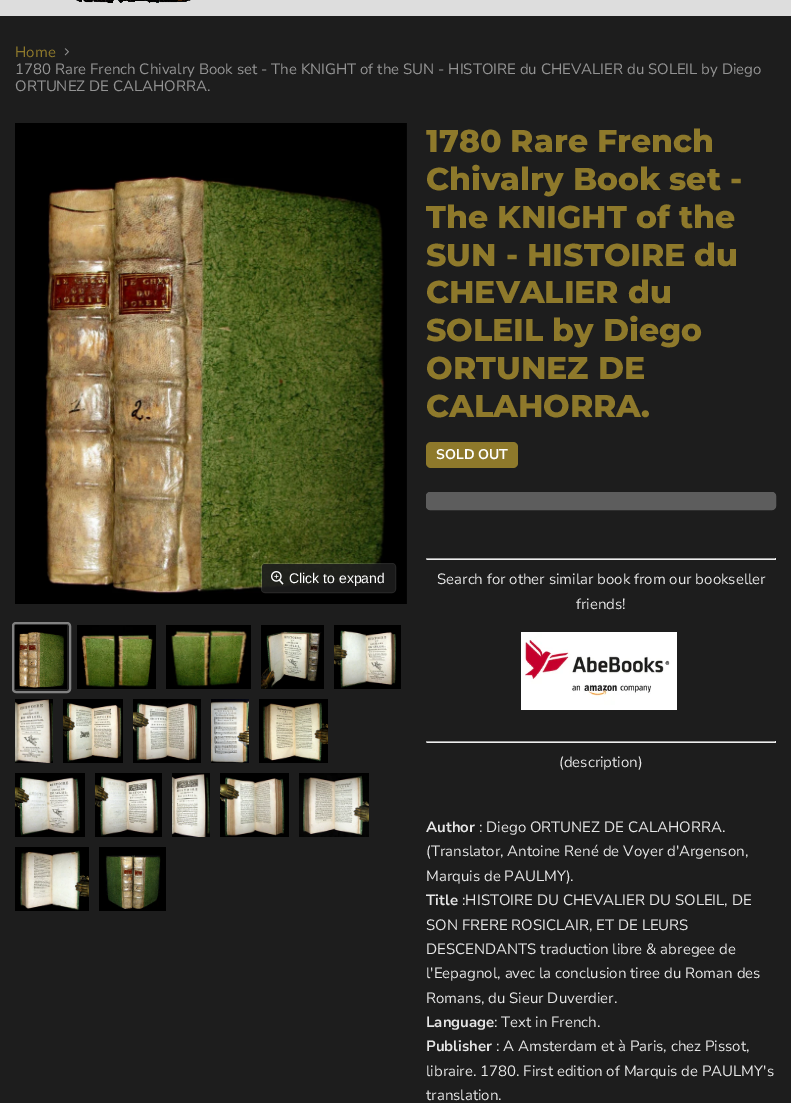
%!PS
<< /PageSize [791 1103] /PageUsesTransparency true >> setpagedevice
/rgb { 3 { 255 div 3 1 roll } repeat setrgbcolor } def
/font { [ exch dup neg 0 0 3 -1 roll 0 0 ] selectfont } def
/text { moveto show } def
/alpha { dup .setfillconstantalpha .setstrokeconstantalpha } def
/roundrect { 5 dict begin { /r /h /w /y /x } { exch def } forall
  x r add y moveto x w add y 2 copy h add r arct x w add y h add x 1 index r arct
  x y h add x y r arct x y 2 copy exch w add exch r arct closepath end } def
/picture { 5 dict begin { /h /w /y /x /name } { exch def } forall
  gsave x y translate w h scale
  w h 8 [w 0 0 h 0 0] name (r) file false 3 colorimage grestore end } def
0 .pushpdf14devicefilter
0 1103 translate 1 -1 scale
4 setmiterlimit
29 29 29 rgb
0 0 791 1103 rectfill
221 221 221 rgb
0 0 791 16 rectfill
(img_01.rgb) 76 0 115 3 picture
(img_02.rgb) 64 48 5 8 picture
(img_03.rgb) 15 123 392 481 picture
0.15 alpha
255 255 255 rgb
261.5 563.5 134 29 3.5 roundrect stroke
0.9 alpha
29 29 29 rgb
262 564 133 28 3 roundrect fill
1 alpha
(img_04.rgb) 271 571 13 14 picture
129 129 129 rgb
2 setlinewidth
13 623 57 69 3 roundrect stroke
(img_05.rgb) 15 625 52 64 picture
(img_06.rgb) 77 625 79 64 picture
(img_07.rgb) 166 625 85 64 picture
(img_08.rgb) 261 625 63 64 picture
(img_09.rgb) 334 625 67 64 picture
(img_10.rgb) 15 699 38 64 picture
(img_11.rgb) 63 699 60 64 picture
(img_12.rgb) 133 699 68 64 picture
(img_13.rgb) 211 699 38 64 picture
(img_14.rgb) 259 699 69 64 picture
(img_15.rgb) 15 773 70 64 picture
(img_16.rgb) 95 773 67 64 picture
(img_17.rgb) 172 773 38 64 picture
(img_18.rgb) 220 773 69 64 picture
(img_19.rgb) 299 773 70 64 picture
(img_20.rgb) 15 847 74 64 picture
(img_21.rgb) 99 847 67 64 picture
142 121 43 rgb
426 442 92 26 5 roundrect fill
93 93 93 rgb
426.5 492.5 349 17 3.5 roundrect gsave fill grestore
1 setlinewidth
stroke
159 159 159 rgb
426 558 350 1 rectfill
238 238 238 rgb
775 558 1 2 rectfill
426 559 350 1 rectfill
159 159 159 rgb
426 558 1 2 rectfill
(img_22.rgb) 521 632 156 78 picture
426 741 350 1 rectfill
238 238 238 rgb
775 741 1 2 rectfill
426 742 350 1 rectfill
159 159 159 rgb
426 741 1 2 rectfill
/NunitoSans-Regular 15 font
142 121 43 rgb
(Home) 15 57 text
148 148 148 rgb
(1780 Rare French Chivalry Book set - The KNIGHT of the SUN - HISTOIRE du CHEVALIER du SOLEIL by Diego) 15 74 text
(ORTUNEZ DE CALAHORRA.) 15 91 text
/LiberationSans-Regular 14 font
255 255 255 rgb
(Click to expand) 289 583 text
/Montserrat-ExtraBold 31.5 font
142 121 43 rgb
(1780 Rare French) 426 152 text
(Chivalry Book set -) 426 190 text
(The KNIGHT of the) 426 228 text
(SUN - HISTOIRE du) 426 266 text
(CHEVALIER du) 426 303 text
(SOLEIL by Diego) 426 341 text
(ORTUNEZ DE) 426 379 text
(CALAHORRA.) 426 417 text
/NunitoSans-Bold 14 font
255 255 255 rgb
(SOLD OUT) 436 459 text
/NunitoSans-Regular 15 font
230 230 230 rgb
(Search for other similar book from our bookseller) 437 584 text
(friends!) 576 609 text
(\(description\)) 559 767 text
/NunitoSans-Bold 15 font
(Author) 426 832 text
/NunitoSans-Regular 15 font
(: Diego ORTUNEZ DE CALAHORRA.) 479 832 text
(\(Translator, Antoine René de Voyer d'Argenson,) 426 856 text
(Marquis de PAULMY\).) 426 881 text
/NunitoSans-Bold 15 font
(Title) 426 905 text
/NunitoSans-Regular 15 font
(:HISTOIRE DU CHEVALIER DU SOLEIL, DE) 462 905 text
(SON FRERE ROSICLAIR, ET DE LEURS) 426 930 text
(DESCENDANTS traduction libre & abregee de) 426 954 text
(l'Eepagnol, avec la conclusion tiree du Roman des) 426 978 text
(Romans, du Sieur Duverdier.) 426 1003 text
/NunitoSans-Bold 15 font
(Language) 426 1027 text
/NunitoSans-Regular 15 font
(: Text in French.) 494 1027 text
/NunitoSans-Bold 15 font
(Publisher) 426 1051 text
/NunitoSans-Regular 15 font
(: A Amsterdam et à Paris, chez Pissot,) 496 1051 text
(libraire. 1780. First edition of Marquis de PAULMY's) 426 1076 text
(translation.) 426 1100 text
.poppdf14devicefilter showpage
